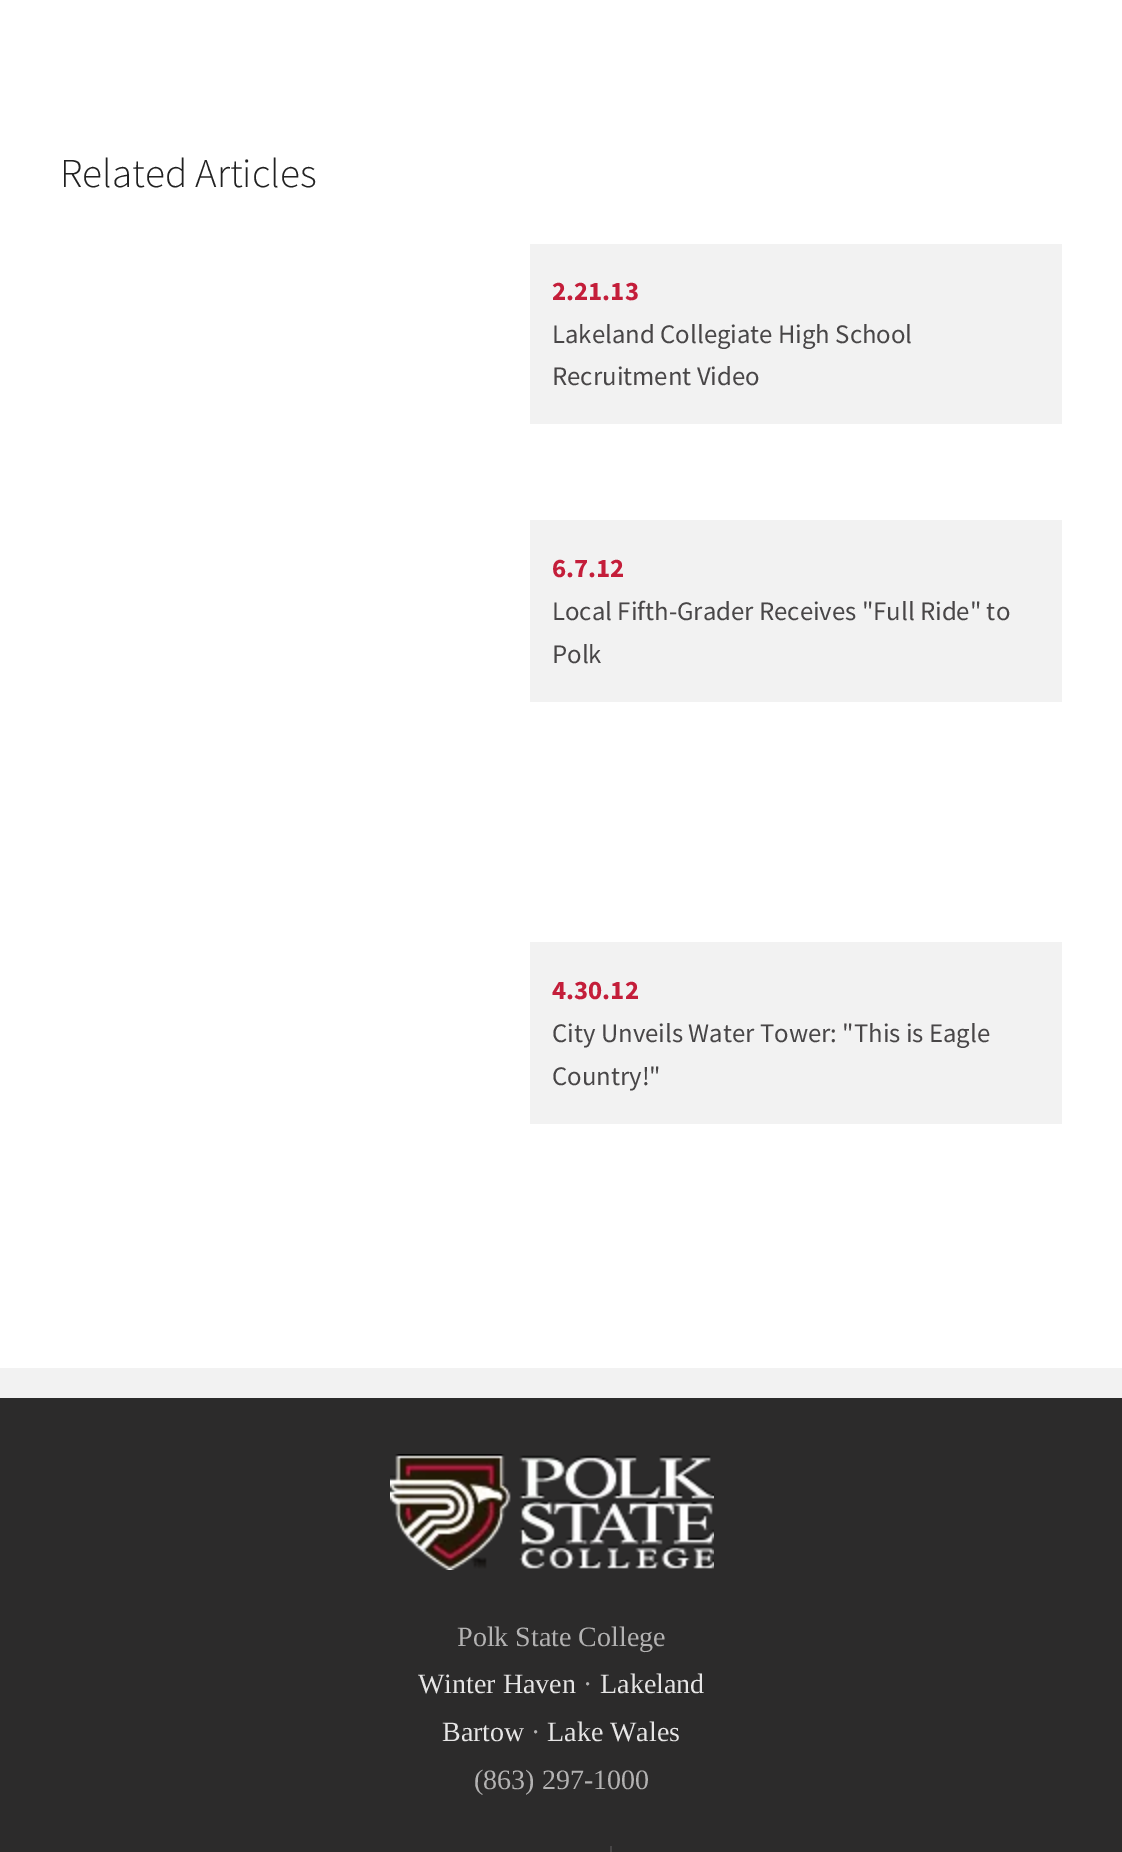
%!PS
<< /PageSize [1122 1852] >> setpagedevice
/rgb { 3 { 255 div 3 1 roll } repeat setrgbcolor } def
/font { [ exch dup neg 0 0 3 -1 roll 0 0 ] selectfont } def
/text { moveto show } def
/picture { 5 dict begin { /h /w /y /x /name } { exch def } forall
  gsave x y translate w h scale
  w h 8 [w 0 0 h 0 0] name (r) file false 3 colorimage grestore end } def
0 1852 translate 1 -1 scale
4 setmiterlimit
255 255 255 rgb
0 0 1122 1852 rectfill
242 242 242 rgb
0 1368 1122 30 rectfill
530 244 532 180 rectfill
530 520 532 182 rectfill
530 942 532 182 rectfill
44 43 43 rgb
0 1398 1122 454 rectfill
(img_01.rgb) 390 1454 324 116 picture
72 70 71 rgb
610 1846 2 6 rectfill
/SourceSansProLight-Light 41 font
33 33 33 rgb
(Related Articles) 60 187 text
/SourceSansPro-Bold 26.75 font
196 30 58 rgb
(2.21.13) 552 300 text
/SourceSansPro-Regular 26.75 font
72 70 71 rgb
(Lakeland Collegiate High School) 552 343 text
(Recruitment Video) 552 385 text
/SourceSansPro-Bold 26.75 font
196 30 58 rgb
(6.7.12) 552 577 text
/SourceSansPro-Regular 26.75 font
72 70 71 rgb
(Local Fifth-Grader Receives "Full Ride" to) 552 620 text
(Polk) 552 663 text
/SourceSansPro-Bold 26.75 font
196 30 58 rgb
(4.30.12) 552 999 text
/SourceSansPro-Regular 26.75 font
72 70 71 rgb
(City Unveils Water Tower: "This is Eagle) 552 1042 text
(Country!") 552 1085 text
/LiberationSerif-Regular 28 font
179 178 178 rgb
(Polk State College) 457 1646 text
230 229 229 rgb
(Winter Haven) 418 1693 text
179 178 178 rgb
(·) 583 1693 text
230 229 229 rgb
(Lakeland) 600 1693 text
(Bartow) 442 1741 text
179 178 178 rgb
(·) 531 1741 text
230 229 229 rgb
(Lake Wales) 547 1741 text
179 178 178 rgb
(\(863\) 297-1000) 474 1789 text
showpage
